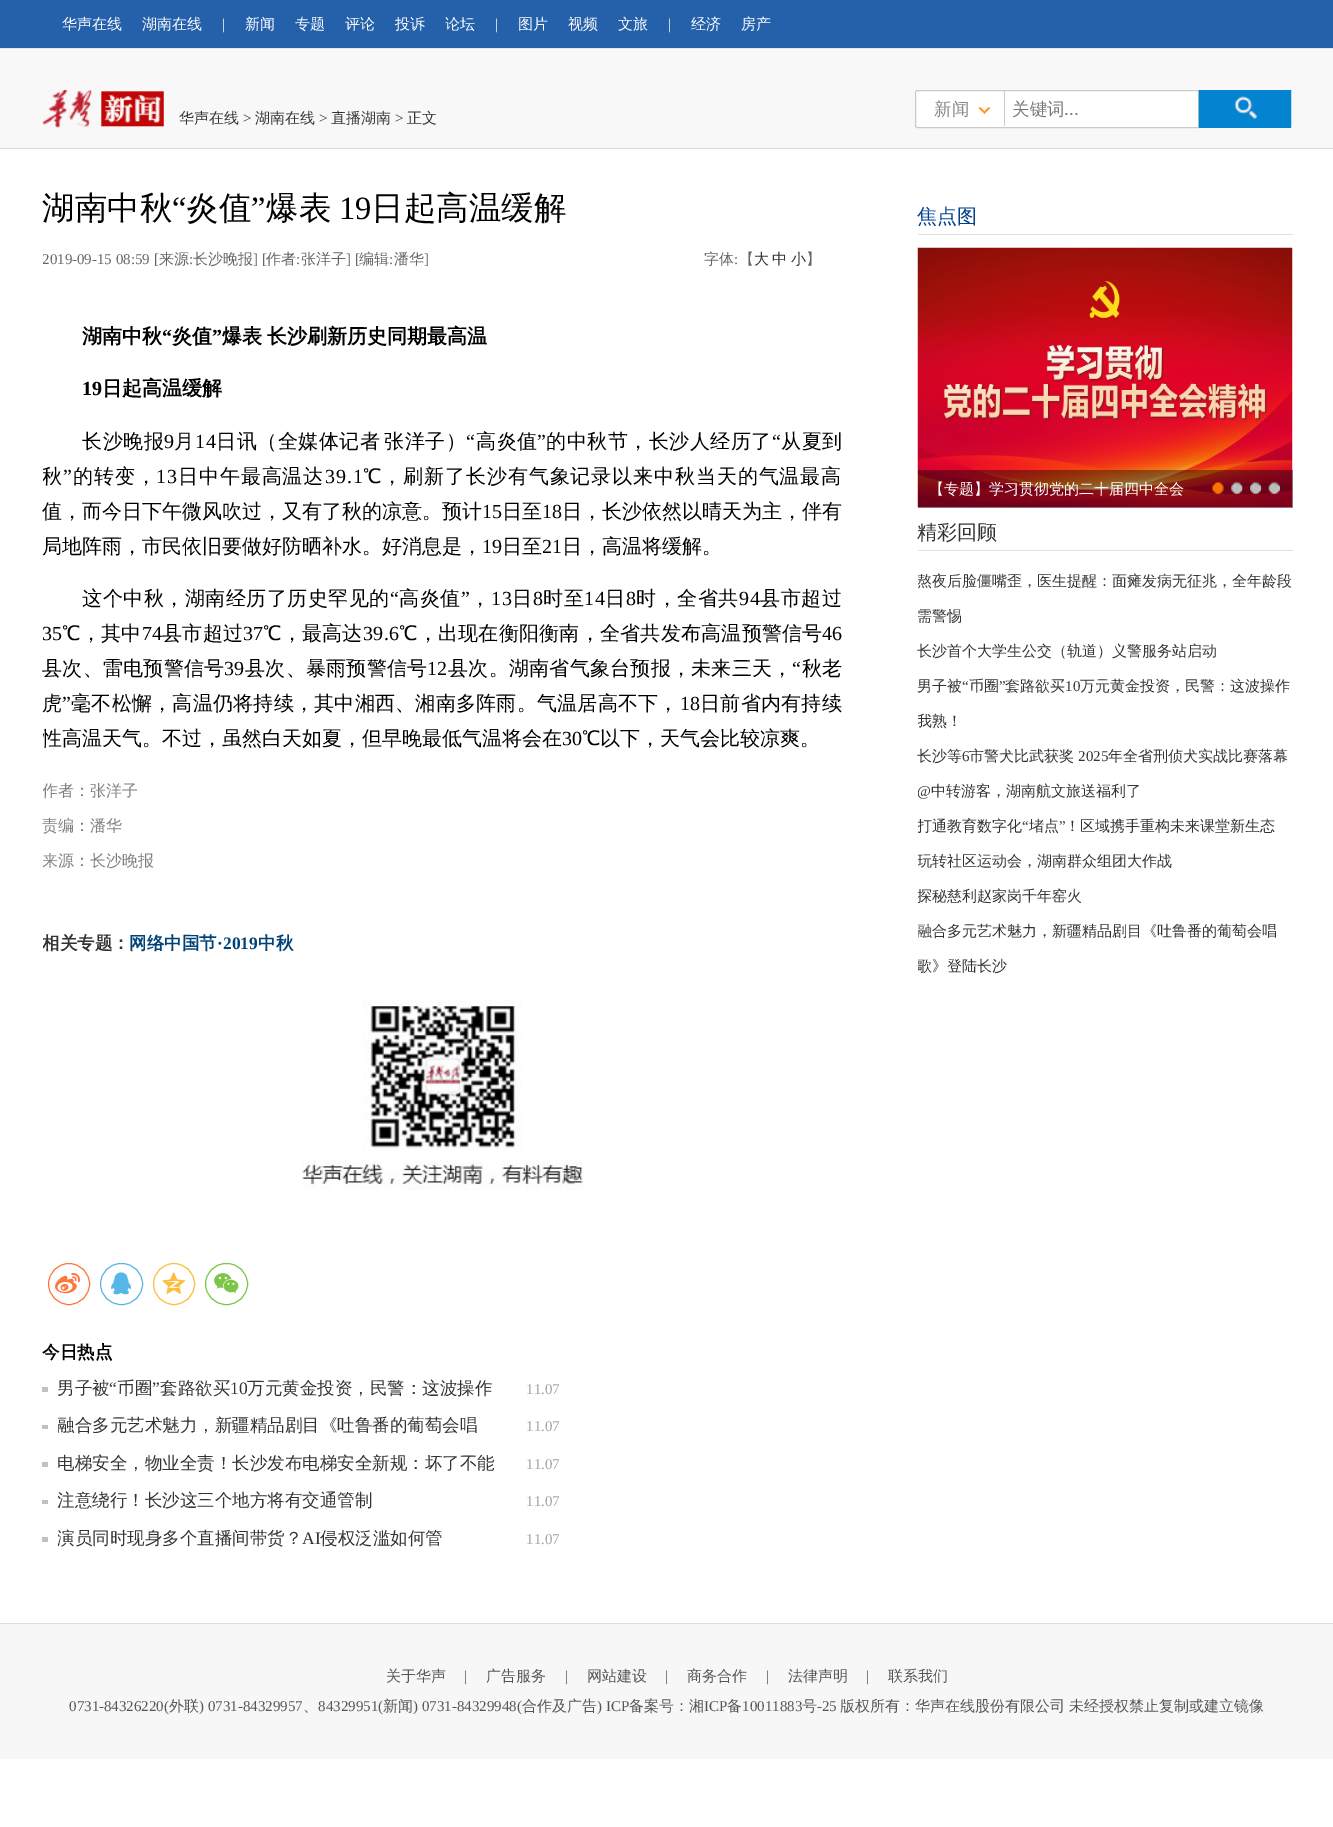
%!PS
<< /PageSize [1333 1827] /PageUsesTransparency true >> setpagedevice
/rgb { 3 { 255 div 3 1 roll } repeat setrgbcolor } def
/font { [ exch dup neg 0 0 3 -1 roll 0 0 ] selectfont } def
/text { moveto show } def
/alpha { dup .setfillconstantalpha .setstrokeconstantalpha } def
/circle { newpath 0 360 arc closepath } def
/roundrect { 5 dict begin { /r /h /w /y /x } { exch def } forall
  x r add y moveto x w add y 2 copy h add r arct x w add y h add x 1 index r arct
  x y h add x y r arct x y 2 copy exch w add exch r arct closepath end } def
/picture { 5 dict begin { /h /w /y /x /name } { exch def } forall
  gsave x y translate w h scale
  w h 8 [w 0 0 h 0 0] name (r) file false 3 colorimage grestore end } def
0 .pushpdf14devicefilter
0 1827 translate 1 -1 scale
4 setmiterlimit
255 255 255 rgb
0 0 1333 1827 rectfill
37 97 170 rgb
0 0 1333 48 rectfill
229 230 232 rgb
0 48 1333 1 rectfill
248 248 248 rgb
0 49 1333 99 rectfill
219 219 219 rgb
0 148 1333 1 rectfill
(img_01.rgb) 42 90 122 38 picture
255 255 255 rgb
917.5 90.5 moveto 281 0 rlineto 0 37 rlineto -281 0 rlineto -1 0 -2 -1 -2 -2 rcurveto 0 -33 rlineto 0 -1 1 -2 2 -2 rcurveto closepath gsave fill grestore
202 202 202 rgb
stroke
(img_02.rgb) 978 107 13 7 picture
1004 91 1 35 rectfill
4 131 209 rgb
1199 127 92 1 rectfill
(img_03.rgb) 1198 90 94 38 picture
(img_04.rgb) 302 1000 281 190 picture
255 118 59 rgb
69 1284 20.5 circle stroke
(img_05.rgb) 55 1273 25 21 picture
86 182 231 rgb
100.5 1263.5 42 41 20.5 roundrect stroke
(img_06.rgb) 111 1272 20 23 picture
253 190 61 rgb
174 1284 20.5 circle stroke
(img_07.rgb) 162 1272 24 22 picture
123 197 73 rgb
205.5 1263.5 42 41 20.5 roundrect stroke
(img_08.rgb) 214 1273 25 20 picture
193 193 193 rgb
42 1387 6 5 rectfill
192 192 192 rgb
42 1425 6 4 rectfill
193 193 193 rgb
42 1462 6 5 rectfill
192 192 192 rgb
42 1500 6 4 rectfill
193 193 193 rgb
42 1537 6 5 rectfill
225 225 225 rgb
918 234 375 1 rectfill
(img_09.rgb) 917 247 376 261 picture
0.4 alpha
0 0 0 rgb
918 470 375 38 rectfill
1 alpha
(img_10.rgb) 1212 482 12 12 picture
(img_11.rgb) 1231 482 12 12 picture
(img_12.rgb) 1250 482 12 12 picture
(img_13.rgb) 1268 482 12 12 picture
225 225 225 rgb
918 550 375 1 rectfill
247 247 247 rgb
0 1624 1333 135 rectfill
221 221 221 rgb
0 1623 1333 1 rectfill
/WenQuanYiZenHei-Medium 15 font
255 255 255 rgb
(华声在线) 62 29 text
(湖南在线) 142 29 text
/LiberationSerif-Regular 15 font
(|) 222 29 text
/WenQuanYiZenHei-Medium 15 font
(新闻) 245 29 text
(专题) 295 29 text
(评论) 345 29 text
(投诉) 395 29 text
(论坛) 445 29 text
/LiberationSerif-Regular 15 font
(|) 495 29 text
/WenQuanYiZenHei-Medium 15 font
(图片) 518 29 text
(视频) 568 29 text
(文旅) 618 29 text
/LiberationSerif-Regular 15 font
(|) 668 29 text
/WenQuanYiZenHei-Medium 15 font
(经济) 691 29 text
(房产) 741 29 text
51 51 51 rgb
(华声在线) 179 123 text
/LiberationSerif-Regular 15 font
(>) 243 123 text
/WenQuanYiZenHei-Medium 15 font
(湖南在线) 255 123 text
/LiberationSerif-Regular 15 font
(>) 319 123 text
/WenQuanYiZenHei-Medium 15 font
(直播湖南) 331 123 text
/LiberationSerif-Regular 15 font
(>) 395 123 text
/WenQuanYiZenHei-Medium 15 font
(正文) 407 123 text
/WenQuanYiZenHei-Medium 17.5 font
136 136 136 rgb
(新闻) 934 115 text
117 117 117 rgb
(关键词) 1012 115 text
/LiberationSans-Regular 17.5 font
(...) 1064 115 text
/WenQuanYiZenHei-Medium 32.5 font
0 0 0 rgb
(湖南中秋) 42 219 text
/LiberationSerif-Regular 32.5 font
(“) 172 219 text
/WenQuanYiZenHei-Medium 32.5 font
(炎值) 186 219 text
/LiberationSerif-Regular 32.5 font
(”) 251 219 text
/WenQuanYiZenHei-Medium 32.5 font
(爆表) 266 219 text
/LiberationSerif-Regular 32.5 font
(19) 339 219 text
/WenQuanYiZenHei-Medium 32.5 font
(日起高温缓解) 371 219 text
gsave
43 231 800 45 rectclip
/LiberationSerif-Regular 15 font
102 102 102 rgb
(2019-09-15 08:59) 42 264 text
grestore
/LiberationSerif-Regular 15 font
102 102 102 rgb
([) 154 264 text
/WenQuanYiZenHei-Medium 15 font
(来源) 159 264 text
/LiberationSerif-Regular 15 font
(:) 189 264 text
/WenQuanYiZenHei-Medium 15 font
(长沙晚报) 193 264 text
/LiberationSerif-Regular 15 font
(] [) 253 264 text
/WenQuanYiZenHei-Medium 15 font
(作者) 266 264 text
/LiberationSerif-Regular 15 font
(:) 296 264 text
/WenQuanYiZenHei-Medium 15 font
(张洋子) 301 264 text
/LiberationSerif-Regular 15 font
(] [) 346 264 text
/WenQuanYiZenHei-Medium 15 font
(编辑) 359 264 text
/LiberationSerif-Regular 15 font
(:) 389 264 text
/WenQuanYiZenHei-Medium 15 font
(潘华) 394 264 text
/LiberationSerif-Regular 15 font
(]) 424 264 text
/WenQuanYiZenHei-Medium 15 font
(字体) 704 264 text
/LiberationSerif-Regular 15 font
(:) 734 264 text
/WenQuanYiZenHei-Medium 15 font
(【) 739 264 text
51 51 51 rgb
(大) 754 264 text
(中) 772 264 text
(小) 791 264 text
102 102 102 rgb
(】) 806 264 text
/WenQuanYiZenHei-Bold 20 font
0 0 0 rgb
(湖南中秋) 82 343 text
/LiberationSerif-Bold 20 font
(“) 162 343 text
/WenQuanYiZenHei-Bold 20 font
(炎值) 172 343 text
/LiberationSerif-Bold 20 font
(”) 212 343 text
/WenQuanYiZenHei-Bold 20 font
222 343 moveto -1 0 32 (爆表 长沙刷新历史同期最高温) widthshow
/LiberationSerif-Bold 20 font
(19) 82 395 text
/WenQuanYiZenHei-Bold 20 font
(日起高温缓解) 102 395 text
/WenQuanYiZenHei-Medium 20 font
82 448 moveto 0.5 0 (长沙晚报) ashow
/LiberationSerif-Regular 20 font
164 448 moveto 0.5 0 (9) ashow
/WenQuanYiZenHei-Medium 20 font
174 448 moveto 0.5 0 (月) ashow
/LiberationSerif-Regular 20 font
195 448 moveto 0.5 0 (14) ashow
/WenQuanYiZenHei-Medium 20 font
216 448 moveto 0.5 0 (日讯（全媒体记者) ashow
384 448 moveto 0.5 0 (张洋子）) ashow
/LiberationSerif-Regular 20 font
466 448 moveto 0.5 0 (“) ashow
/WenQuanYiZenHei-Medium 20 font
476 448 moveto 0.5 0 (高炎值) ashow
/LiberationSerif-Regular 20 font
537 448 moveto 0.5 0 (”) ashow
/WenQuanYiZenHei-Medium 20 font
546 448 moveto 0.5 0 (的中秋节，长沙人经历了) ashow
/LiberationSerif-Regular 20 font
772 448 moveto 0.5 0 (“) ashow
/WenQuanYiZenHei-Medium 20 font
781 448 moveto 0.5 0 (从夏到) ashow
gsave
43 276 800 603 rectclip
42 483 moveto 0.9 0 (秋) ashow
grestore
/LiberationSerif-Regular 20 font
63 483 moveto 0.9 0 (”) ashow
/WenQuanYiZenHei-Medium 20 font
73 483 moveto 0.9 0 (的转变，) ashow
/LiberationSerif-Regular 20 font
156 483 moveto 0.9 0 (13) ashow
/WenQuanYiZenHei-Medium 20 font
178 483 moveto 0.9 0 (日中午最高温达) ashow
/LiberationSerif-Regular 20 font
325 483 moveto 0.9 0 (39.1) ashow
/WenQuanYiZenHei-Medium 20 font
363 483 moveto 0.9 0 (℃，刷新了长沙有气象记录以来中秋当天的气温最高) ashow
(值，而今日下午微风吹过，又有了秋的凉意。预计) 42 518 text
/LiberationSerif-Regular 20 font
(15) 482 518 text
/WenQuanYiZenHei-Medium 20 font
(日至) 502 518 text
/LiberationSerif-Regular 20 font
(18) 542 518 text
/WenQuanYiZenHei-Medium 20 font
(日，长沙依然以晴天为主，伴有) 562 518 text
(局地阵雨，市民依旧要做好防晒补水。好消息是，) 42 553 text
/LiberationSerif-Regular 20 font
(19) 482 553 text
/WenQuanYiZenHei-Medium 20 font
(日至) 502 553 text
/LiberationSerif-Regular 20 font
(21) 542 553 text
/WenQuanYiZenHei-Medium 20 font
(日，高温将缓解。) 562 553 text
82 605 moveto 0.5 0 (这个中秋，湖南经历了历史罕见的) ashow
/LiberationSerif-Regular 20 font
390 605 moveto 0.5 0 (“) ashow
/WenQuanYiZenHei-Medium 20 font
399 605 moveto 0.5 0 (高炎值) ashow
/LiberationSerif-Regular 20 font
461 605 moveto 0.5 0 (”) ashow
/WenQuanYiZenHei-Medium 20 font
470 605 moveto 0.5 0 (，) ashow
/LiberationSerif-Regular 20 font
491 605 moveto 0.5 0 (13) ashow
/WenQuanYiZenHei-Medium 20 font
512 605 moveto 0.5 0 (日) ashow
/LiberationSerif-Regular 20 font
533 605 moveto 0.5 0 (8) ashow
/WenQuanYiZenHei-Medium 20 font
543 605 moveto 0.5 0 (时至) ashow
/LiberationSerif-Regular 20 font
584 605 moveto 0.5 0 (14) ashow
/WenQuanYiZenHei-Medium 20 font
605 605 moveto 0.5 0 (日) ashow
/LiberationSerif-Regular 20 font
626 605 moveto 0.5 0 (8) ashow
/WenQuanYiZenHei-Medium 20 font
636 605 moveto 0.5 0 (时，全省共) ashow
/LiberationSerif-Regular 20 font
739 605 moveto 0.5 0 (94) ashow
/WenQuanYiZenHei-Medium 20 font
760 605 moveto 0.5 0 (县市超过) ashow
gsave
43 276 800 603 rectclip
/LiberationSerif-Regular 20 font
42 640 moveto 0.25 0 (35) ashow
grestore
62 640 moveto 0.25 0 (℃，其中) ashow
/LiberationSerif-Regular 20 font
142 640 moveto 0.25 0 (74) ashow
/WenQuanYiZenHei-Medium 20 font
162 640 moveto 0.25 0 (县市超过) ashow
/LiberationSerif-Regular 20 font
243 640 moveto 0.25 0 (37) ashow
/WenQuanYiZenHei-Medium 20 font
263 640 moveto 0.25 0 (℃，最高达) ashow
/LiberationSerif-Regular 20 font
363 640 moveto 0.25 0 (39.6) ashow
/WenQuanYiZenHei-Medium 20 font
399 640 moveto 0.25 0 (℃，出现在衡阳衡南，全省共发布高温预警信号) ashow
/LiberationSerif-Regular 20 font
822 640 moveto 0.25 0 (46) ashow
/WenQuanYiZenHei-Medium 20 font
42 675 moveto 0.25 0 (县次、雷电预警信号) ashow
/LiberationSerif-Regular 20 font
224 675 moveto 0.25 0 (39) ashow
/WenQuanYiZenHei-Medium 20 font
245 675 moveto 0.25 0 (县次、暴雨预警信号) ashow
/LiberationSerif-Regular 20 font
427 675 moveto 0.25 0 (12) ashow
/WenQuanYiZenHei-Medium 20 font
448 675 moveto 0.25 0 (县次。湖南省气象台预报，未来三天，) ashow
/LiberationSerif-Regular 20 font
792 675 moveto 0.25 0 (“) ashow
/WenQuanYiZenHei-Medium 20 font
802 675 moveto 0.25 0 (秋老) ashow
42 710 moveto 0.25 0 (虎) ashow
/LiberationSerif-Regular 20 font
62 710 moveto 0.25 0 (”) ashow
/WenQuanYiZenHei-Medium 20 font
71 710 moveto 0.25 0 (毫不松懈，高温仍将持续，其中湘西、湘南多阵雨。气温居高不下，) ashow
/LiberationSerif-Regular 20 font
680 710 moveto 0.25 0 (18) ashow
/WenQuanYiZenHei-Medium 20 font
700 710 moveto 0.25 0 (日前省内有持续) ashow
gsave
43 276 800 603 rectclip
(性高温天气。不过，虽然白天如夏，但早晚最低气温将会在) 42 745 text
grestore
/LiberationSerif-Regular 20 font
(30) 562 745 text
/WenQuanYiZenHei-Medium 20 font
(℃以下，天气会比较凉爽。) 582 745 text
gsave
43 276 800 603 rectclip
/WenQuanYiZenHei-Medium 16 font
127 127 127 rgb
(作者：张洋子) 42 796 text
grestore
/WenQuanYiZenHei-Medium 16 font
127 127 127 rgb
(责编：潘华) 42 831 text
gsave
43 276 800 603 rectclip
(来源：长沙晚报) 42 866 text
grestore
gsave
43 149 800 1409 rectclip
/WenQuanYiZenHei-Bold 17.5 font
51 51 51 rgb
(相关专题：) 42 949 text
grestore
/WenQuanYiZenHei-Bold 17.5 font
0 66 118 rgb
(网络中国节) 129 949 text
/LiberationSerif-Bold 17.5 font
(·2019) 217 949 text
/WenQuanYiZenHei-Bold 17.5 font
(中秋) 258 949 text
0 0 0 rgb
(今日热点) 42 1358 text
/WenQuanYiZenHei-Medium 17.5 font
51 51 51 rgb
(男子被) 57 1394 text
/LiberationSerif-Regular 17.5 font
(“) 109 1394 text
/WenQuanYiZenHei-Medium 17.5 font
(币圈) 117 1394 text
/LiberationSerif-Regular 17.5 font
(”) 152 1394 text
/WenQuanYiZenHei-Medium 17.5 font
(套路欲买) 160 1394 text
/LiberationSerif-Regular 17.5 font
(10) 230 1394 text
/WenQuanYiZenHei-Medium 17.5 font
(万元黄金投资，民警：这波操作) 247 1394 text
/LiberationSerif-Regular 15 font
166 161 161 rgb
(11.07) 526 1394 text
gsave
58 1408 445 37 rectclip
/WenQuanYiZenHei-Medium 17.5 font
51 51 51 rgb
(融合多元艺术魅力，新疆精品剧目《吐鲁番的葡萄会唱) 57 1431 text
grestore
(11.07) 526 1431 text
/WenQuanYiZenHei-Medium 17.5 font
51 51 51 rgb
(电梯安全，物业全责！长沙发布电梯安全新规：坏了不能) 57 1469 text
/LiberationSerif-Regular 15 font
166 161 161 rgb
(11.07) 526 1469 text
gsave
58 1483 445 37 rectclip
/WenQuanYiZenHei-Medium 17.5 font
51 51 51 rgb
(注意绕行！长沙这三个地方将有交通管制) 57 1506 text
grestore
(11.07) 526 1506 text
gsave
58 1520 445 38 rectclip
/WenQuanYiZenHei-Medium 17.5 font
51 51 51 rgb
(演员同时现身多个直播间带货？) 57 1544 text
grestore
/LiberationSerif-Regular 17.5 font
51 51 51 rgb
(AI) 302 1544 text
/WenQuanYiZenHei-Medium 17.5 font
(侵权泛滥如何管) 320 1544 text
/LiberationSerif-Regular 15 font
166 161 161 rgb
(11.07) 526 1544 text
/WenQuanYiZenHei-Medium 20 font
1 64 141 rgb
(焦点图) 917 223 text
/WenQuanYiZenHei-Medium 15 font
255 255 255 rgb
(【专题】学习贯彻党的二十届四中全会) 929 494 text
/WenQuanYiZenHei-Medium 20 font
51 51 51 rgb
(精彩回顾) 917 539 text
gsave
918 191 375 793 rectclip
/WenQuanYiZenHei-Medium 15 font
(熬夜后脸僵嘴歪，医生提醒：面瘫发病无征兆，全年龄段) 917 586 text
grestore
/WenQuanYiZenHei-Medium 15 font
(需警惕) 917 621 text
(长沙首个大学生公交（轨道）义警服务站启动) 917 656 text
(男子被) 917 691 text
/LiberationSerif-Regular 15 font
(“) 962 691 text
/WenQuanYiZenHei-Medium 15 font
(币圈) 969 691 text
/LiberationSerif-Regular 15 font
(”) 999 691 text
/WenQuanYiZenHei-Medium 15 font
(套路欲买) 1005 691 text
/LiberationSerif-Regular 15 font
(10) 1065 691 text
/WenQuanYiZenHei-Medium 15 font
(万元黄金投资，民警：这波操作) 1080 691 text
gsave
918 191 375 793 rectclip
(我熟！) 917 726 text
grestore
(长沙等) 917 761 text
/LiberationSerif-Regular 15 font
(6) 962 761 text
/WenQuanYiZenHei-Medium 15 font
(市警犬比武获奖) 969 761 text
/LiberationSerif-Regular 15 font
(2025) 1078 761 text
/WenQuanYiZenHei-Medium 15 font
(年全省刑侦犬实战比赛落幕) 1108 761 text
gsave
918 191 375 793 rectclip
/LiberationSerif-Regular 15 font
(@) 917 796 text
grestore
(中转游客，湖南航文旅送福利了) 931 796 text
gsave
918 191 375 793 rectclip
(打通教育数字化) 917 831 text
grestore
/LiberationSerif-Regular 15 font
(“) 1022 831 text
/WenQuanYiZenHei-Medium 15 font
(堵点) 1029 831 text
/LiberationSerif-Regular 15 font
(”) 1059 831 text
/WenQuanYiZenHei-Medium 15 font
(！区域携手重构未来课堂新生态) 1065 831 text
gsave
918 191 375 793 rectclip
(玩转社区运动会，湖南群众组团大作战) 917 866 text
(探秘慈利赵家岗千年窑火) 917 901 text
(融合多元艺术魅力，新疆精品剧目《吐鲁番的葡萄会唱) 917 936 text
(歌》登陆长沙) 917 971 text
grestore
85 85 85 rgb
(关于华声) 386 1681 text
/LiberationSerif-Regular 15 font
(|) 464 1681 text
/WenQuanYiZenHei-Medium 15 font
(广告服务) 486 1681 text
/LiberationSerif-Regular 15 font
(|) 565 1681 text
/WenQuanYiZenHei-Medium 15 font
(网站建设) 587 1681 text
/LiberationSerif-Regular 15 font
(|) 665 1681 text
/WenQuanYiZenHei-Medium 15 font
(商务合作) 687 1681 text
/LiberationSerif-Regular 15 font
(|) 766 1681 text
/WenQuanYiZenHei-Medium 15 font
(法律声明) 788 1681 text
/LiberationSerif-Regular 15 font
(|) 866 1681 text
/WenQuanYiZenHei-Medium 15 font
(联系我们) 888 1681 text
/LiberationSerif-Regular 15 font
(0731-84326220\() 69 1711 text
/WenQuanYiZenHei-Medium 15 font
(外联) 169 1711 text
/LiberationSerif-Regular 15 font
(\) 0731-84329957) 199 1711 text
/WenQuanYiZenHei-Medium 15 font
(、) 303 1711 text
/LiberationSerif-Regular 15 font
(84329951\() 318 1711 text
/WenQuanYiZenHei-Medium 15 font
(新闻) 383 1711 text
/LiberationSerif-Regular 15 font
(\) 0731-84329948\() 413 1711 text
/WenQuanYiZenHei-Medium 15 font
(合作及广告) 522 1711 text
/LiberationSerif-Regular 15 font
(\) ICP) 597 1711 text
/WenQuanYiZenHei-Medium 15 font
(备案号：湘) 629 1711 text
/LiberationSerif-Regular 15 font
(ICP) 704 1711 text
/WenQuanYiZenHei-Medium 15 font
(备) 727 1711 text
/LiberationSerif-Regular 15 font
(10011883) 742 1711 text
/WenQuanYiZenHei-Medium 15 font
(号) 802 1711 text
/LiberationSerif-Regular 15 font
(-25) 817 1711 text
/WenQuanYiZenHei-Medium 15 font
(版权所有：华声在线股份有限公司 未经授权禁止复制或建立镜像) 840 1711 text
.poppdf14devicefilter showpage
